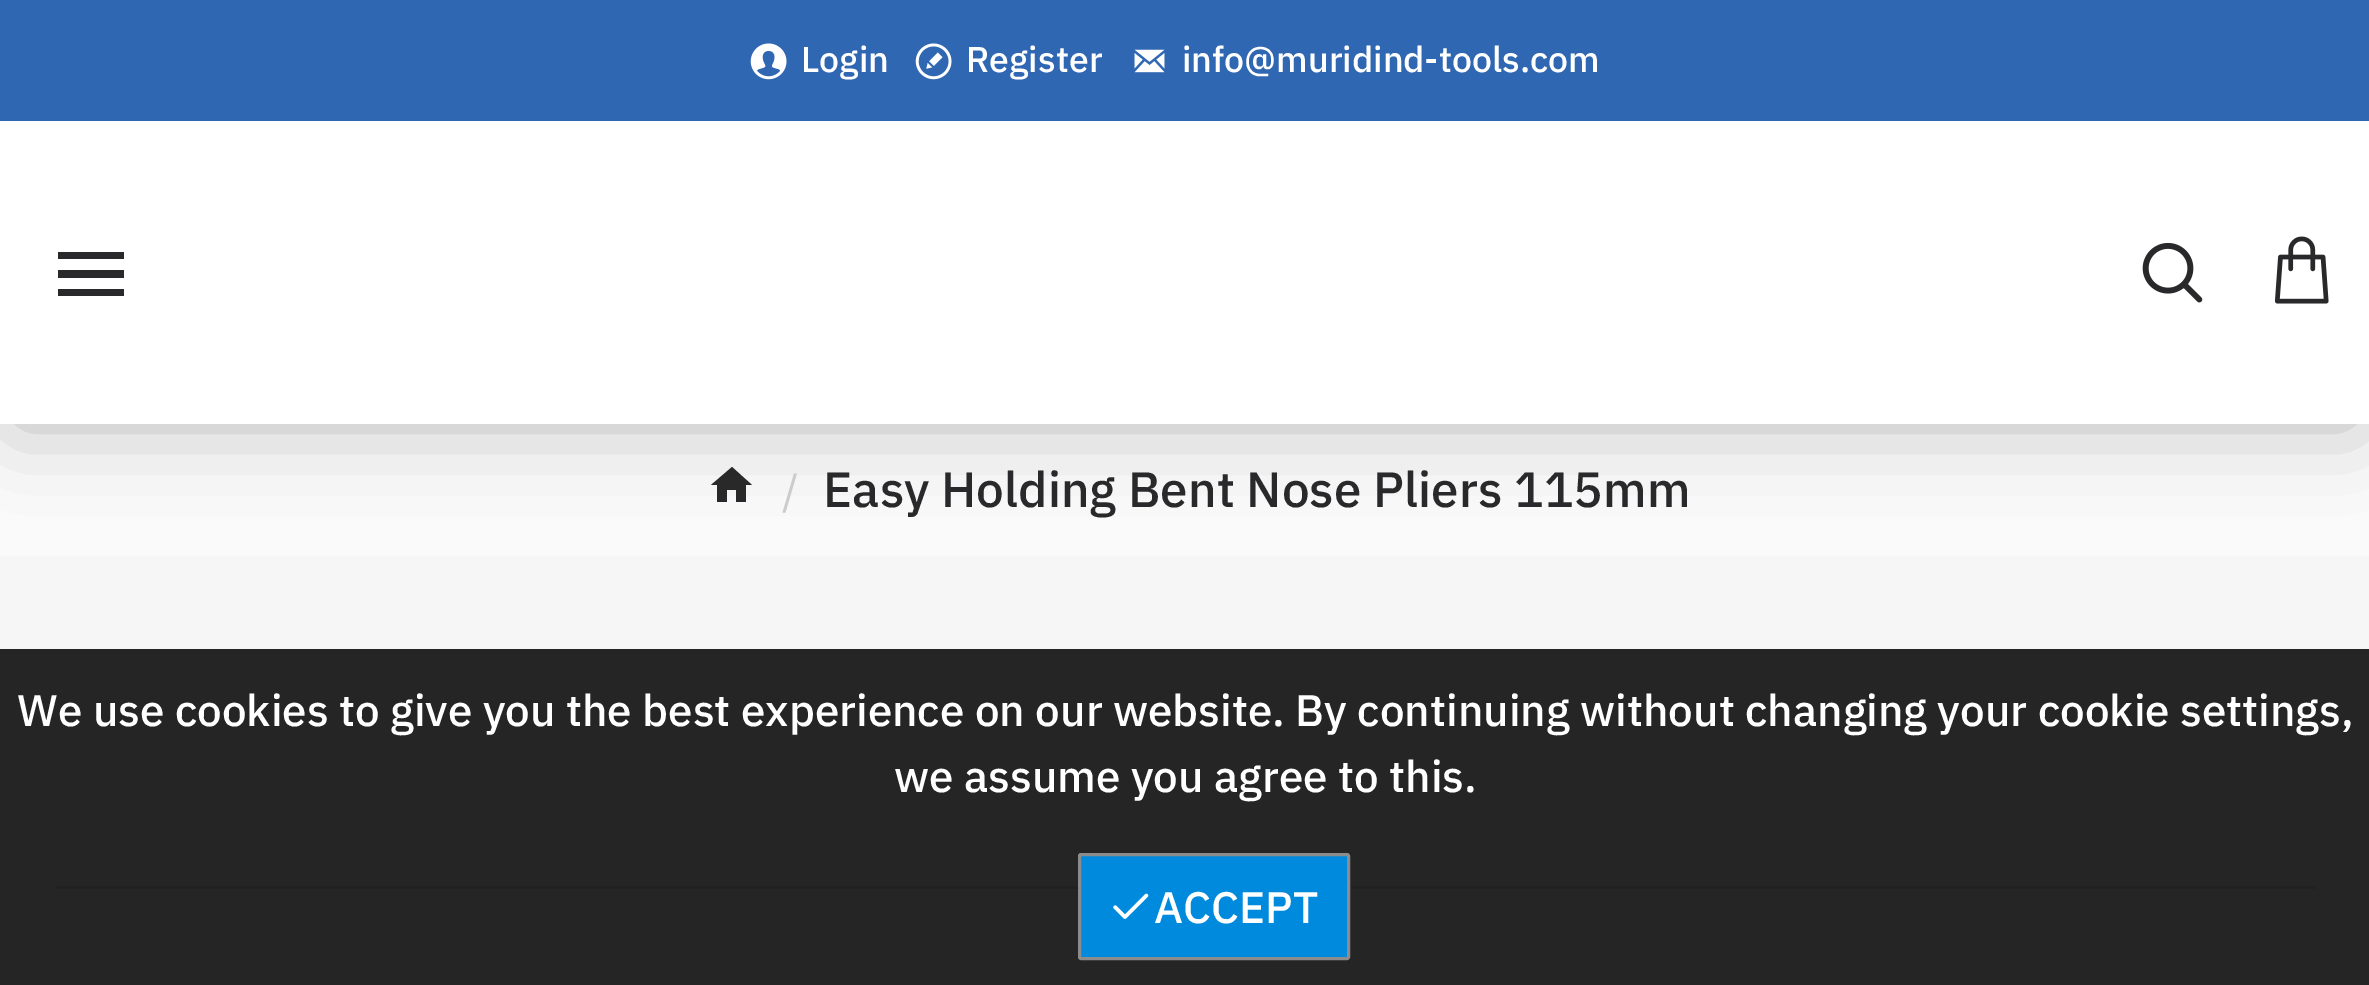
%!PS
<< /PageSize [2369 985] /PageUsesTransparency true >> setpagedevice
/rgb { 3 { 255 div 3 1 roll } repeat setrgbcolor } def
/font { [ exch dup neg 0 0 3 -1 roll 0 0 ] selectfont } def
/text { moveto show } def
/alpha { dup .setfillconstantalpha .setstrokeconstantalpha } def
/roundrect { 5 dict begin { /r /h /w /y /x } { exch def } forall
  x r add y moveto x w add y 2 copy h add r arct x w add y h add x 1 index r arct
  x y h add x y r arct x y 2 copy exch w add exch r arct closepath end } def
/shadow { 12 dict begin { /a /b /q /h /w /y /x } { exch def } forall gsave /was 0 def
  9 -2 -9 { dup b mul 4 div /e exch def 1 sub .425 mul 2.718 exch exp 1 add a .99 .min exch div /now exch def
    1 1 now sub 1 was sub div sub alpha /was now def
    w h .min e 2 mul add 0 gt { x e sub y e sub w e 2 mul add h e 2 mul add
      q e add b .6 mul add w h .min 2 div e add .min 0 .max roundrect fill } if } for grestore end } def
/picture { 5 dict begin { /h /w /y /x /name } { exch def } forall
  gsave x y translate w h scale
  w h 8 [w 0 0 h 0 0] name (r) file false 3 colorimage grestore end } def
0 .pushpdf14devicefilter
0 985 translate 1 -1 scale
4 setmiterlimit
246 246 246 rgb
0 0 2369 985 rectfill
37 37 37 rgb
0 649 2369 336 rectfill
250 250 250 rgb
0 424 2369 132 rectfill
41 41 43 rgb
727 502 moveto -10 0 rlineto 0 -17 rlineto -6 0 rlineto 21 -18 rlineto 20 18 rlineto -6 0 rlineto 0 17 rlineto -10 0 rlineto 0 -12 rlineto -9 0 rlineto closepath fill
0 0 0 rgb
14 149 2343 275 0 41 0.27 shadow
255 255 255 rgb
0 121 2369 303 rectfill
41 41 43 rgb
58 252 moveto 66 0 rlineto 0 7 rlineto -66 0 rlineto closepath 58 278 moveto 0 -8 rlineto 66 0 rlineto 0 8 rlineto closepath 58 296 moveto 0 -7 rlineto 66 0 rlineto 0 7 rlineto closepath fill
(img_01.rgb) 2142 242 61 61 picture
(img_02.rgb) 2274 236 55 68 picture
47 103 178 rgb
0 0 2369 121 rectfill
(img_03.rgb) 750 43 37 37 picture
(img_04.rgb) 915 43 37 37 picture
(img_05.rgb) 1134 49 31 24 picture
33 33 33 rgb
55 886 2261 3 rectfill
0 138 221 rgb
1079.5 854.5 269 104 1.5 roundrect gsave fill grestore
140 140 140 rgb
3 setlinewidth
stroke
(img_06.rgb) 1113 893 36 26 picture
/IBMPlexSans-Medium 35.75 font
255 255 255 rgb
(Login) 801 72 text
(Register) 966 72 text
(info@muridind-tools.com) 1182 72 text
/IBMPlexSans-Regular 44 font
204 204 204 rgb
(/) 782 506 text
/IBMPlexSans-Medium 49.5 font
41 41 43 rgb
(Easy Holding Bent Nose Pliers 115mm) 823 507 text
/IBMPlexSans-Medium 44 font
255 255 255 rgb
(We use cookies to give you the best experience on our website. By continuing without changing your cookie settings,) 17 726 text
(we assume you agree to this.) 894 792 text
(ACCEPT) 1154 923 text
.poppdf14devicefilter showpage
